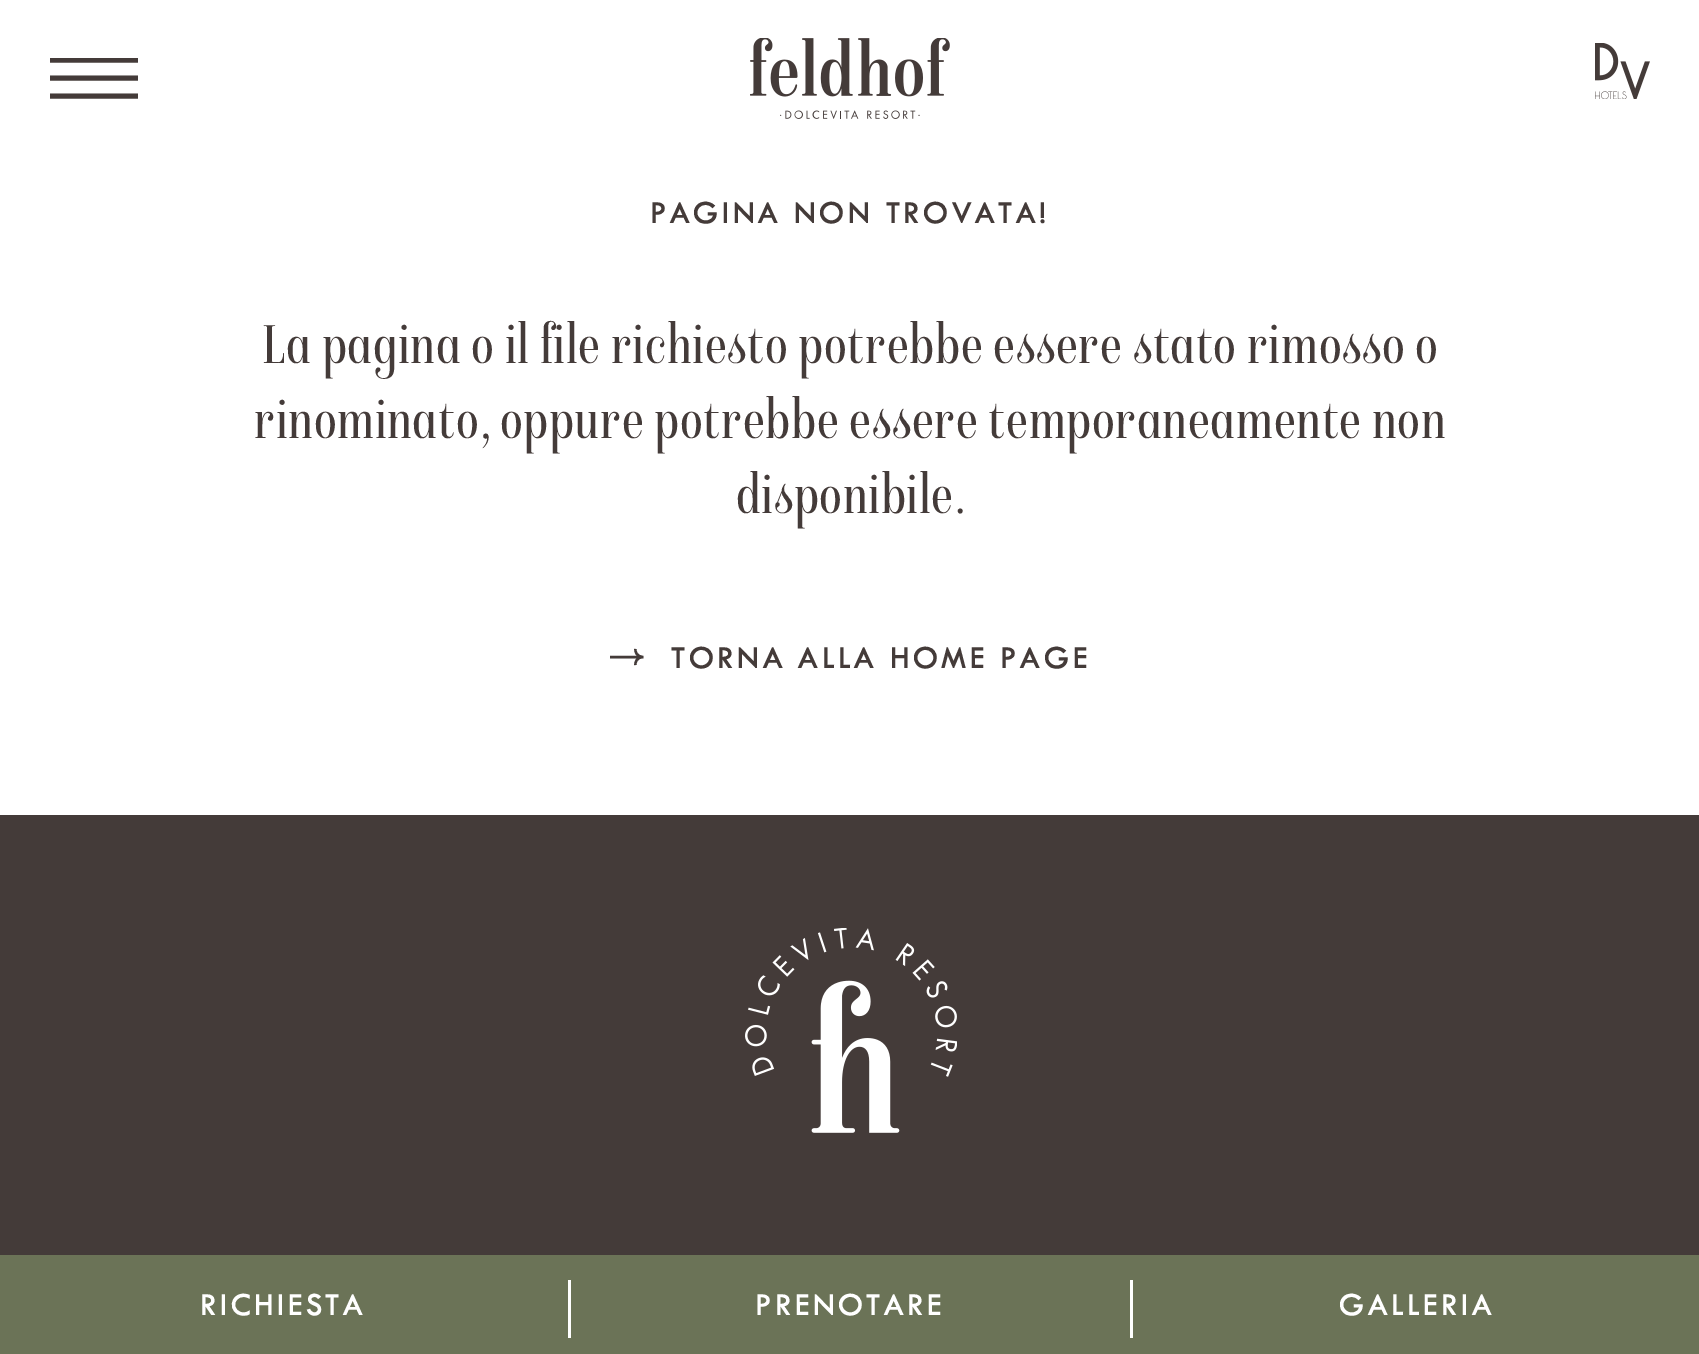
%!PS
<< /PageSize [1699 1354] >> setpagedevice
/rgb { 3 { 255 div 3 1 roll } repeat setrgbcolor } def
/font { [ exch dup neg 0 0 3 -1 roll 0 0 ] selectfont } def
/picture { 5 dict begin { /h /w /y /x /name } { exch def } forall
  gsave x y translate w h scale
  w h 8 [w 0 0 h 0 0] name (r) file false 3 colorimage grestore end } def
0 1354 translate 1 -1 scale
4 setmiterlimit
255 255 255 rgb
0 0 1699 1354 rectfill
68 59 57 rgb
5.1 setlinewidth
50 78 moveto 88 0 rlineto stroke
gsave
50 58 90 42 rectclip
50 60 moveto 88 0 rlineto stroke
grestore
50 96 moveto 88 0 rlineto stroke
(img_01.rgb) 750 38 200 81 picture
(img_02.rgb) 1595 43 55 56 picture
2.4 setlinewidth
1 setlinejoin
635.5 649 moveto -0.5 2.5 1 8 8 8 rcurveto 643.5 657 moveto -7 0 -8.5 5.5 -8 8 rcurveto 643.5 657 moveto -33.5 0 rlineto stroke
0 815 1699 440 rectfill
(img_03.rgb) 745 928 212 205 picture
107 115 87 rgb
0 1255 1699 99 rectfill
255 255 255 rgb
568 1280 3 58 rectfill
1130 1280 3 58 rectfill
/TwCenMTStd-SemiBold 32.5 font
68 59 57 rgb
650 223 moveto 3.6 0 (PAGINA NON TROVATA!) ashow
/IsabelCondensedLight-Regular 57.5 font
262 363 moveto 0.58 0 (La pagina o il file richiesto potrebbe essere stato rimosso o) ashow
254 438 moveto 0.58 0 (rinominato, oppure potrebbe essere temporaneamente non) ashow
736 513 moveto 0.58 0 (disponibile.) ashow
/TwCenMTStd-SemiBold 32.5 font
671 668 moveto 3.6 0 (TORNA ALLA HOME PAGE) ashow
255 255 255 rgb
200 1315 moveto 3.6 0 (RICHIESTA) ashow
755 1315 moveto 3.6 0 (PRENOTARE) ashow
1339 1315 moveto 3.6 0 (GALLERIA) ashow
showpage
